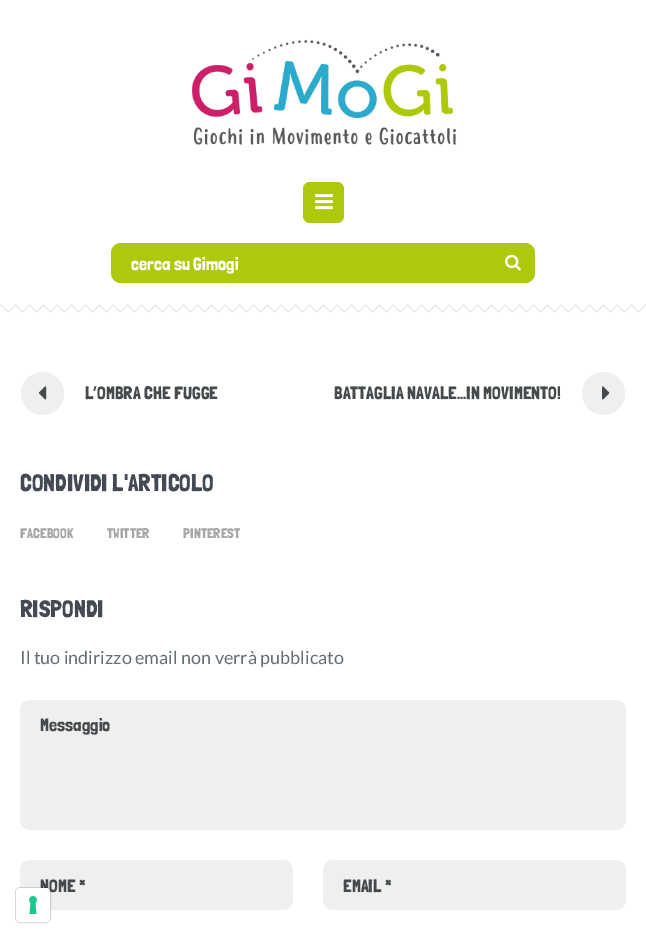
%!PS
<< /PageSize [646 938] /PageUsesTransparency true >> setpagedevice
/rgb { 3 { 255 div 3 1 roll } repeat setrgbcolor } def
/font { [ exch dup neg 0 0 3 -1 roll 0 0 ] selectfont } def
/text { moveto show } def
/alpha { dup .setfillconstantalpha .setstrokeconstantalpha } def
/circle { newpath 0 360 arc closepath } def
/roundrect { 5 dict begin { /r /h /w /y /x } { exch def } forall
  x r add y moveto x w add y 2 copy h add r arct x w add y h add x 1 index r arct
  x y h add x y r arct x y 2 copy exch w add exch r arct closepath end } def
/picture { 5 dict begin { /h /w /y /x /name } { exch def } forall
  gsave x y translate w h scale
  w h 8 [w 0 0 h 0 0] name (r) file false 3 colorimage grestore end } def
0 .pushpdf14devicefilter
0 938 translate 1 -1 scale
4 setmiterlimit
255 255 255 rgb
0 0 646 938 rectfill
(img_01.rgb) 192 39 265 106 picture
174 201 11 rgb
303 182 41 41 7 roundrect fill
(img_02.rgb) 315 194 18 16 picture
111 243 424 40 10 roundrect fill
(img_03.rgb) 505 254 16 17 picture
(img_06.rgb) 2 304 644 8 picture
(img_07.rgb) 0 304 645 9 picture
(img_04.rgb) 1 303 645 7 picture
(img_05.rgb) 0 303 645 8 picture
239 239 239 rgb
42.5 393.5 21.5 circle fill
(img_08.rgb) 38 386 9 14 picture
603.5 393.5 21.5 circle fill
(img_09.rgb) 602 386 8 14 picture
20 700 606 130 10 roundrect fill
20 860 273 50 10 roundrect fill
323 860 303 50 10 roundrect fill
/LondrinaSolid-Regular 18 font
255 255 255 rgb
(cerca su Gimogi) 131 270 text
69 74 76 rgb
(L’OMBRA CHE FUGGE) 85 399 text
(BATTAGLIA NAVALE…IN MOVIMENTO!) 334 399 text
/LondrinaSolid-Regular 24 font
67 74 84 rgb
(CONDIVIDI L'ARTICOLO) 20 491 text
/LondrinaSolid-Regular 14 font
166 166 166 rgb
(FACEBOOK) 20 538 text
(TWITTER) 107 538 text
(PINTEREST) 183 538 text
/LondrinaSolid-Regular 24 font
67 74 84 rgb
(RISPONDI) 20 617 text
/Lato-Regular 18 font
101 111 115 rgb
(Il tuo indirizzo email non verrà pubblicato) 20 664 text
/LondrinaSolid-Regular 18 font
69 74 76 rgb
(Messaggio) 40 731 text
(NOME *) 40 892 text
(EMAIL *) 343 892 text
0.15 alpha
0 0 0 rgb
15.5 887.5 35 35 4.5 roundrect stroke
1 alpha
255 255 255 rgb
16 888 34 34 4 roundrect fill
(img_10.rgb) 29 896 8 18 picture
.poppdf14devicefilter showpage
